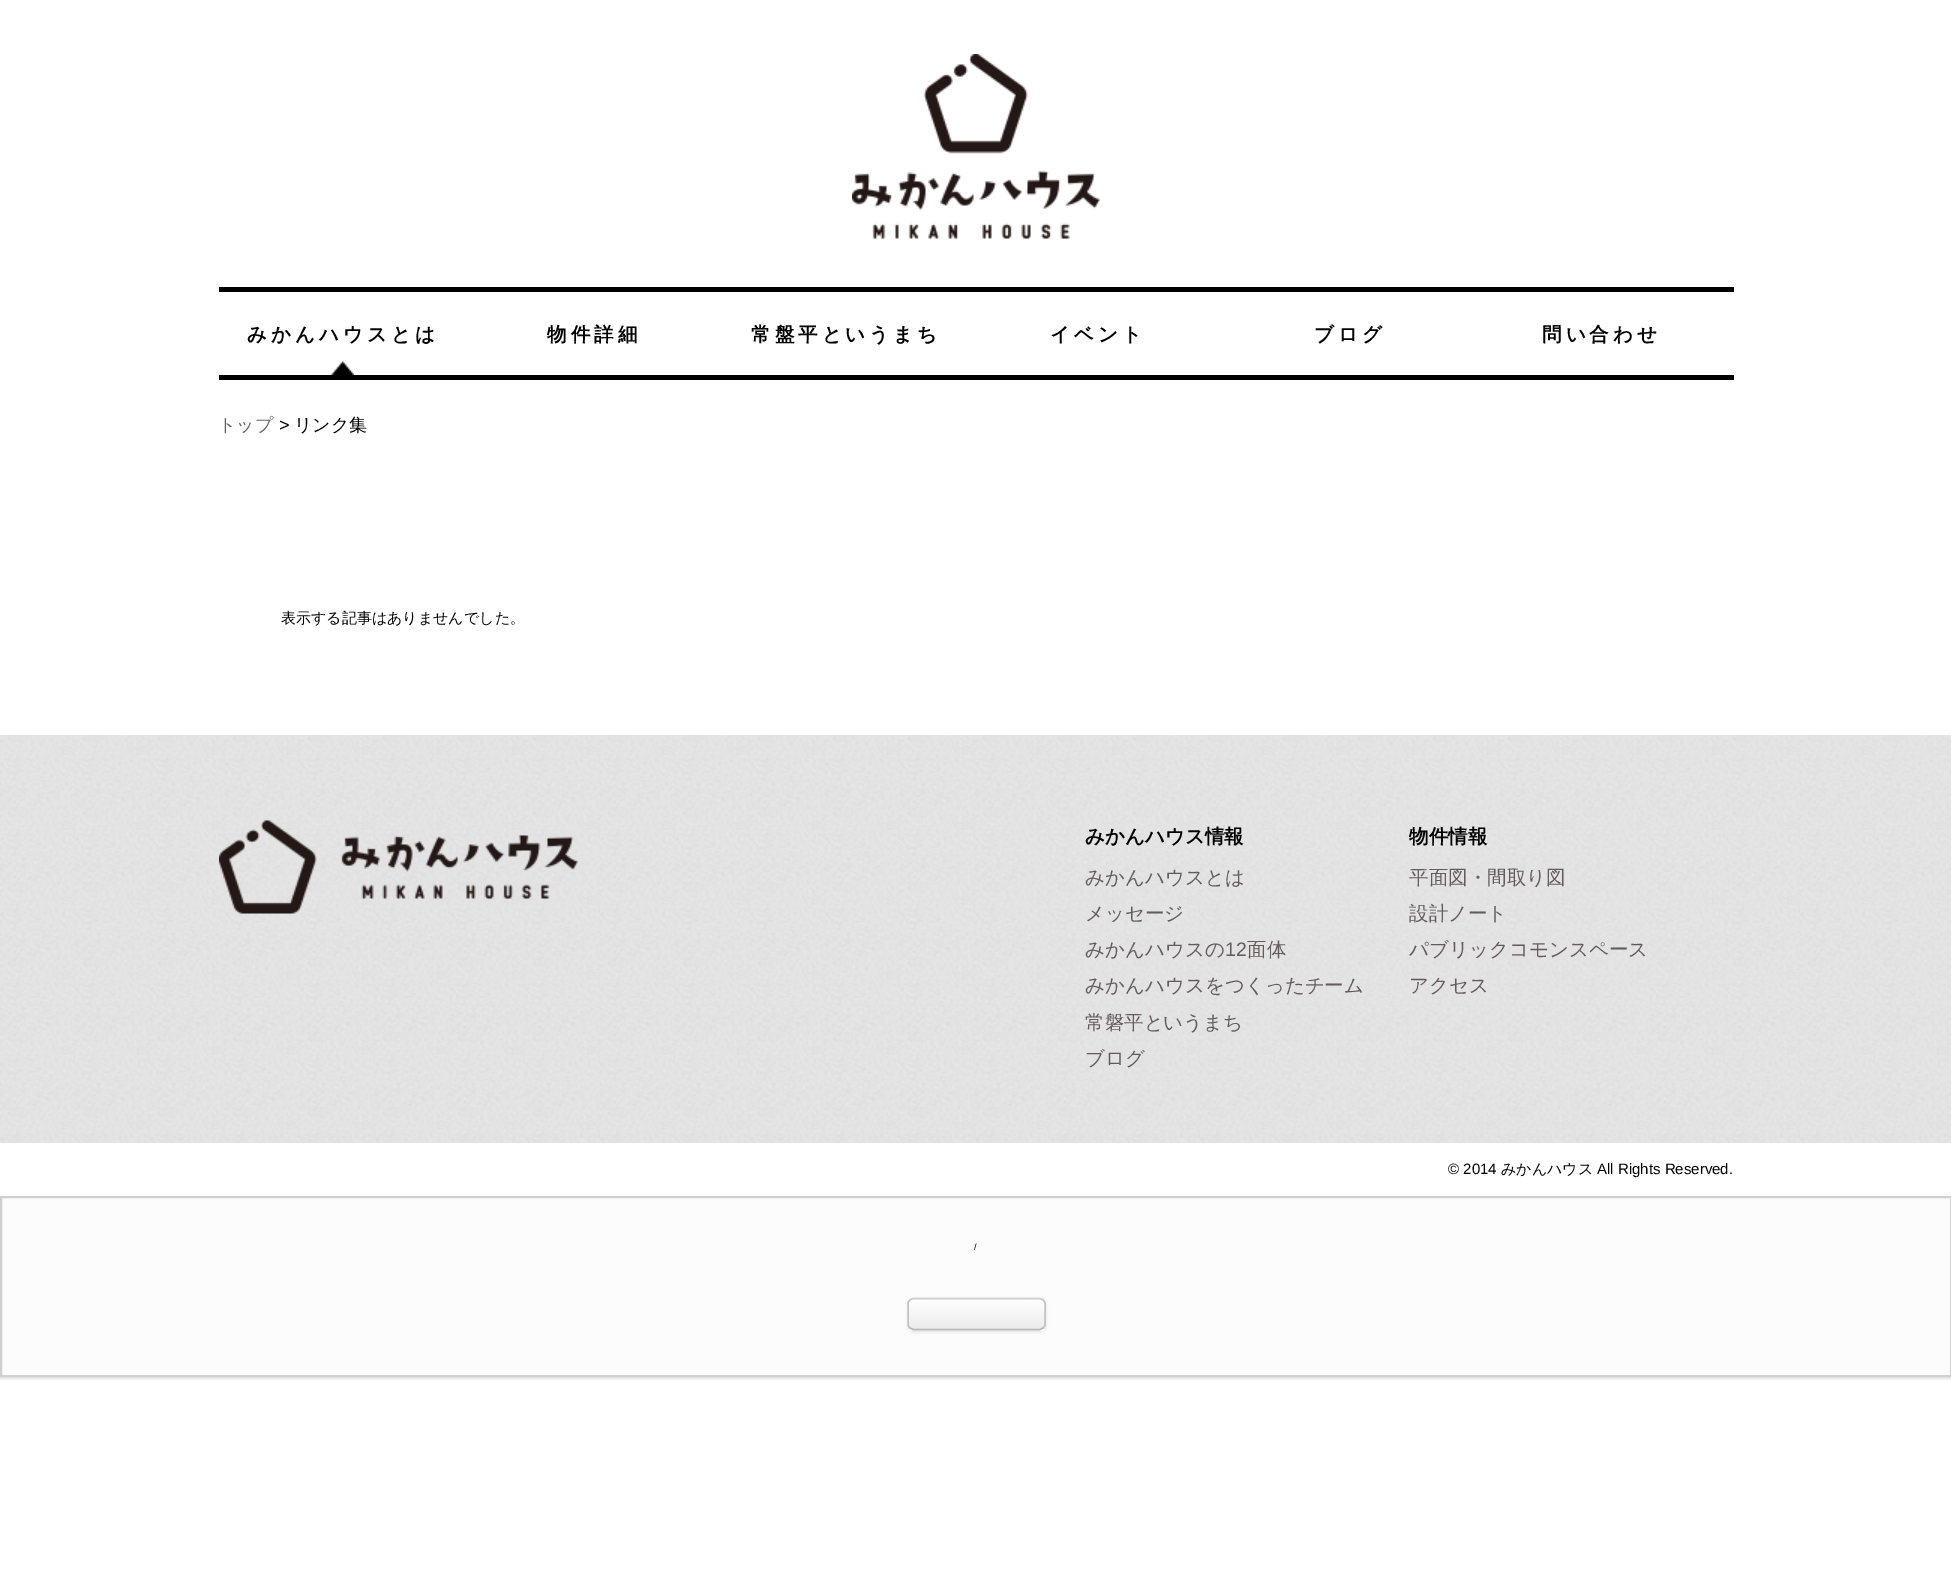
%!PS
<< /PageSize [1951 1580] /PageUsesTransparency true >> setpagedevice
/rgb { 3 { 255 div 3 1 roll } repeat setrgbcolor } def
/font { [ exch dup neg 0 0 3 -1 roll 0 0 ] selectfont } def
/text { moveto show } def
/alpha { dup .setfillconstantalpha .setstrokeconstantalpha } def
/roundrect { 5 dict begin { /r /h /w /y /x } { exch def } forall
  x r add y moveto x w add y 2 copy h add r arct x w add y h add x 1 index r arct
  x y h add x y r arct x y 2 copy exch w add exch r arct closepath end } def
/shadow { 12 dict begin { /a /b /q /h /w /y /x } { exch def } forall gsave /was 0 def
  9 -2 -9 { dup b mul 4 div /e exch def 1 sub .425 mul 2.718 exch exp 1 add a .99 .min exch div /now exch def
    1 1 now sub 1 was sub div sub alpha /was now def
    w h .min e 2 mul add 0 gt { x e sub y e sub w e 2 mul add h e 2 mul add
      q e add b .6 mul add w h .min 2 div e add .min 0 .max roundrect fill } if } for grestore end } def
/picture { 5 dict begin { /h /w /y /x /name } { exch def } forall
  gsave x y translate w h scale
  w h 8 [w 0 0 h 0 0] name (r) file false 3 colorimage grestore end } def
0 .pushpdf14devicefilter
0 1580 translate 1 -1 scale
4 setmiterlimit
255 255 255 rgb
0 0 1951 1580 rectfill
(img_01.rgb) 852 54 248 185 picture
0 0 0 rgb
219 287 1515 5 rectfill
219 375 1515 5 rectfill
(img_02.rgb) 331 361 23 14 picture
(img_03.rgb) 0 735 1951 408 picture
(img_04.rgb) 219 820 359 94 picture
0 1197 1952 182 0 1.5 0.1 shadow
252 252 252 rgb
1 1197 moveto 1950 0 rlineto 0 179 rlineto -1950 0 rlineto closepath gsave fill grestore
208 208 208 rgb
2 setlinewidth
stroke
0 0 0 rgb
908 1299 138 33 6 1.5 0.1 shadow
gsave
908 1298 138 33 6 roundrect clip newpath
gsave 908 1298 moveto 138 0 rlineto 0 1 rlineto -138 0 rlineto closepath clip newpath
<< /ShadingType 2 /ColorSpace /DeviceRGB /Coords [909 1299 909 1269] /Extend [true true] /Function << /FunctionType 2 /Domain [0 1] /C0 [0.922 0.922 0.922] /C1 [1 1 1] /N 1 >> >> shfill grestore
gsave 908 1299 moveto 138 0 rlineto 0 30 rlineto -138 0 rlineto closepath clip newpath
<< /ShadingType 2 /ColorSpace /DeviceRGB /Coords [909 1329 909 1299] /Extend [true true] /Function << /FunctionType 2 /Domain [0 1] /C0 [0.922 0.922 0.922] /C1 [1 1 1] /N 1 >> >> shfill grestore
gsave 908 1329 moveto 138 0 rlineto 0 2 rlineto -138 0 rlineto closepath clip newpath
<< /ShadingType 2 /ColorSpace /DeviceRGB /Coords [909 1359 909 1329] /Extend [true true] /Function << /FunctionType 2 /Domain [0 1] /C0 [0.922 0.922 0.922] /C1 [1 1 1] /N 1 >> >> shfill grestore
grestore
255 255 255 rgb
914 1300 moveto 126 0 rlineto 2 0 4 3 4 5 rcurveto 0 -11 -22 -6 -26 -6 rcurveto -83 0 rlineto -4 0 -26 -5 -26 6 rcurveto 0 -2 2 -5 5 -5 rcurveto closepath fill
205 205 205 rgb
1.5 setlinewidth
910 1300 moveto 3 -1.5 rlineto 127 0 rlineto 3 1.5 rlineto stroke
194 194 194 rgb
1043 1300 moveto 1 1 2 2 2 3.5 rcurveto 0 21 rlineto 0 1.5 -1 2.5 -2 3.5 rcurveto stroke
183 183 183 rgb
1043 1328 moveto -3 1.5 rlineto -127 0 rlineto -3 -1.5 rlineto stroke
194 194 194 rgb
910 1328 moveto -1 -1 -2 -2 -2 -3.5 rcurveto 0 -21 rlineto 0 -1.5 1 -2.5 2 -3.5 rcurveto stroke
/WenQuanYiZenHei-Bold 19.5 font
0 0 0 rgb
247 341 moveto 4 0 (みかんハウスとは) ashow
547 341 moveto 4 0 (物件詳細) ashow
751 341 moveto 4 0 (常盤平というまち) ashow
1050 341 moveto 4 0 (イベント) ashow
1314 341 moveto 4 0 (ブログ) ashow
1542 341 moveto 4 0 (問い合わせ) ashow
/WenQuanYiZenHei-Medium 18 font
102 89 92 rgb
(トップ) 218 431 text
/LiberationSans-Regular 18 font
0 0 0 rgb
(>) 279 431 text
/WenQuanYiZenHei-Medium 18 font
(リンク集) 294 431 text
/WenQuanYiZenHei-Medium 15 font
(表示する記事はありませんでした。) 281 623 text
/WenQuanYiZenHei-Bold 19.5 font
(みかんハウス情報) 1085 843 text
/WenQuanYiZenHei-Medium 19.5 font
102 89 92 rgb
(みかんハウスとは) 1085 884 text
(メッセージ) 1085 920 text
(みかんハウスの) 1085 956 text
/LiberationSans-Regular 19.5 font
(12) 1225 956 text
/WenQuanYiZenHei-Medium 19.5 font
(面体) 1247 956 text
(みかんハウスをつくったチーム) 1085 992 text
(常磐平というまち) 1085 1029 text
(ブログ) 1085 1065 text
/WenQuanYiZenHei-Bold 19.5 font
0 0 0 rgb
(物件情報) 1409 843 text
/WenQuanYiZenHei-Medium 19.5 font
102 89 92 rgb
(平面図・間取り図) 1409 884 text
(設計ノート) 1409 920 text
(パブリックコモンスペース) 1409 956 text
(アクセス) 1409 992 text
/LiberationSans-Regular 15 font
0 0 0 rgb
(© 2014) 1448 1174 text
/WenQuanYiZenHei-Medium 15 font
(みかんハウス) 1501 1174 text
/LiberationSans-Regular 15 font
(All Rights Reserved.) 1597 1174 text
/LiberationSans-Regular 9 font
(/) 974 1250 text
.poppdf14devicefilter showpage
